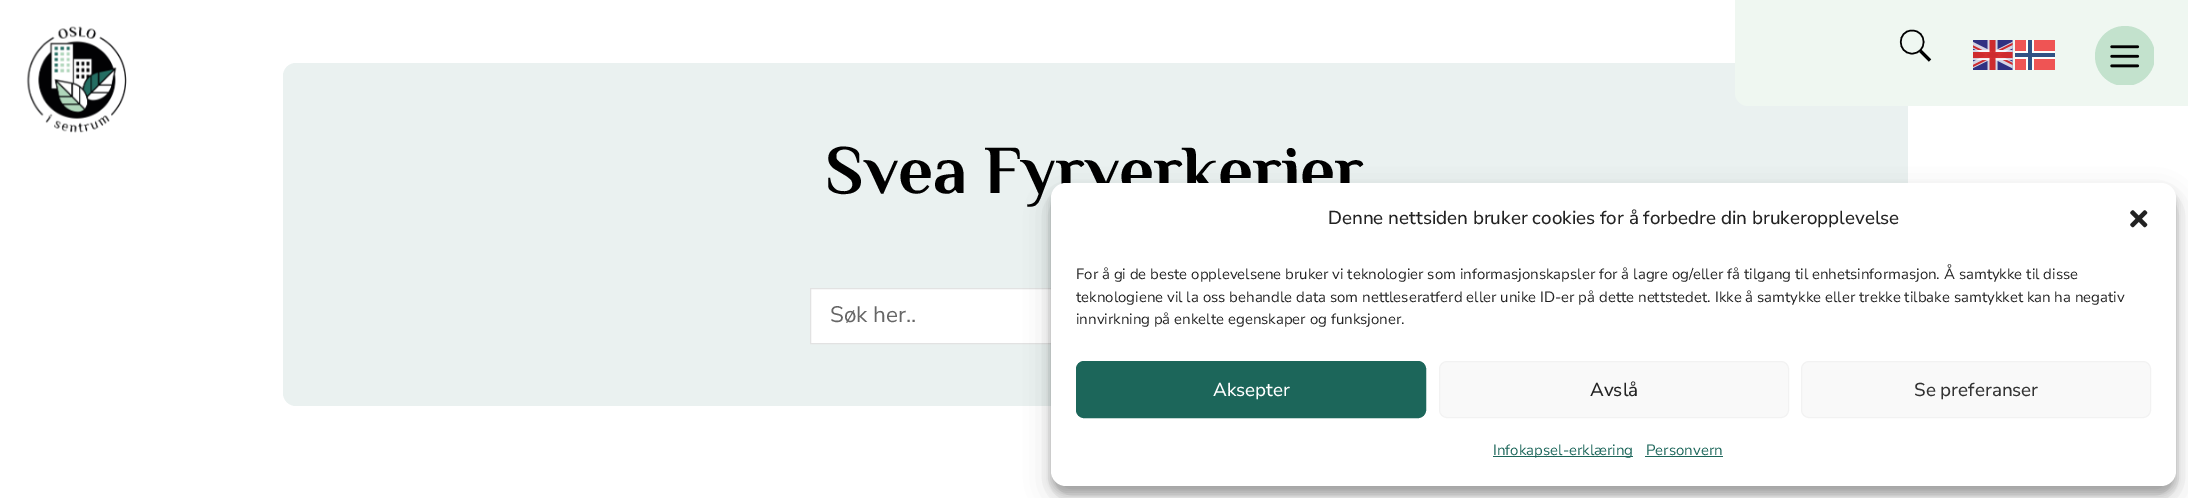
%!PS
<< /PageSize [2188 498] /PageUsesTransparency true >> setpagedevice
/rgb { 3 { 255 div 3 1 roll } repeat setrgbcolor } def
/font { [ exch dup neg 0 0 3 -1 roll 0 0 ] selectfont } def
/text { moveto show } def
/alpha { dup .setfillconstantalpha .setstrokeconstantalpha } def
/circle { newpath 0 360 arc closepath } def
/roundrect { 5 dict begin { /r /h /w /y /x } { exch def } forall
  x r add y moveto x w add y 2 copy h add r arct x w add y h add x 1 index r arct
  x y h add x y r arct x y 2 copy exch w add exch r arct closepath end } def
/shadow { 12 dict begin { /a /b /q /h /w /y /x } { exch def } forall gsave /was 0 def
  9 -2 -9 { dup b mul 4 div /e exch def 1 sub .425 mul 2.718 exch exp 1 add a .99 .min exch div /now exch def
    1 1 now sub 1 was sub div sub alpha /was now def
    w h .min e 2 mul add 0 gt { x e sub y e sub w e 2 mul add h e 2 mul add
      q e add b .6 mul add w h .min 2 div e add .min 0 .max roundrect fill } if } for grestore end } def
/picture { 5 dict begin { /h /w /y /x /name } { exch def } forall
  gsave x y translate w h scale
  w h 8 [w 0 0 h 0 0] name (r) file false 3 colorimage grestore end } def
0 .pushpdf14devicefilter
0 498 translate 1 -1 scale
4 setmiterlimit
255 255 255 rgb
0 0 2188 498 rectfill
(img_01.rgb) 26 26 101 107 picture
234 241 240 rgb
283 63 1625 343 13 roundrect fill
239 247 241 rgb
1735 0 moveto 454 0 rlineto 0 106 rlineto -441 0 rlineto -7 0 -13 -6 -13 -13 rcurveto closepath fill
0 0 0 rgb
1.5 setlinewidth
1 setlinecap
1912 53.5 moveto 15.5 0 15.5 -23 0 -23 rcurveto -15 0 -15 23 0 23 rcurveto closepath stroke
2.9 setlinewidth
0 setlinecap
1920.5 51 moveto 9.5 9.5 rlineto stroke
(img_02.rgb) 1973 40 40 30 picture
239 84 84 rgb
2015 40 40 30 rectfill
252 253 252 rgb
2026 40 8 30 rectfill
2015 51 40 8 rectfill
48 81 131 rgb
2028 40 4 30 rectfill
2015 53 40 4 rectfill
gsave
2095 26 59 59 rectclip
195 226 205 rgb
2125 56 30 circle fill
grestore
(img_03.rgb) 2110 45 30 23 picture
255 255 255 rgb
811 289 240 54 rectfill
226 226 226 rgb
1 setlinewidth
810.5 288.5 568 55 rectstroke
0 0 0 rgb
1051 190 1125 304 15 4 0.23 shadow
1051 195 1125 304 15 12.5 0.19 shadow
/Philosopher-Bold 68.75 font
(Svea Fyrverkerier) 825 193 text
/NunitoSans-Regular 22.5 font
102 102 102 rgb
(Søk her..) 830 322 text
255 255 255 rgb
1051 183 1125 303 15 roundrect fill
/NunitoSans-Medium 18.75 font
34 34 34 rgb
(Denne nettsiden bruker cookies for å forbedre din brukeropplevelse) 1328 224 text
(img_04.rgb) 2130 210 18 18 picture
/NunitoSans-Regular 15 font
(For å gi de beste opplevelsene bruker vi teknologier som informasjonskapsler for å lagre og/eller få tilgang til enhetsinformasjon. Å samtykke til disse) 1076 279 text
(teknologiene vil la oss behandle data som nettleseratferd eller unike ID-er på dette nettstedet. Ikke å samtykke eller trekke tilbake samtykket kan ha negativ) 1076 302 text
(innvirkning på enkelte egenskaper og funksjoner.) 1076 324 text
28 102 90 rgb
1076.5 361.5 349 56 7.5 roundrect gsave fill grestore
stroke
/NunitoSans-Medium 18.75 font
255 255 255 rgb
(Aksepter) 1213 396 text
249 249 249 rgb
1439.5 361.5 349 56 7.5 roundrect gsave fill grestore
242 242 242 rgb
stroke
34 34 34 rgb
(Avslå) 1590 396 text
249 249 249 rgb
1801.5 361.5 349 56 7.5 roundrect gsave fill grestore
242 242 242 rgb
stroke
51 51 51 rgb
(Se preferanser) 1914 396 text
28 102 90 rgb
1493 456 140 1 rectfill
/NunitoSans-Regular 15 font
(Infokapsel-erklæring) 1493 455 text
(Personvern) 1646 455 text
1645 456 78 1 rectfill
.poppdf14devicefilter showpage
